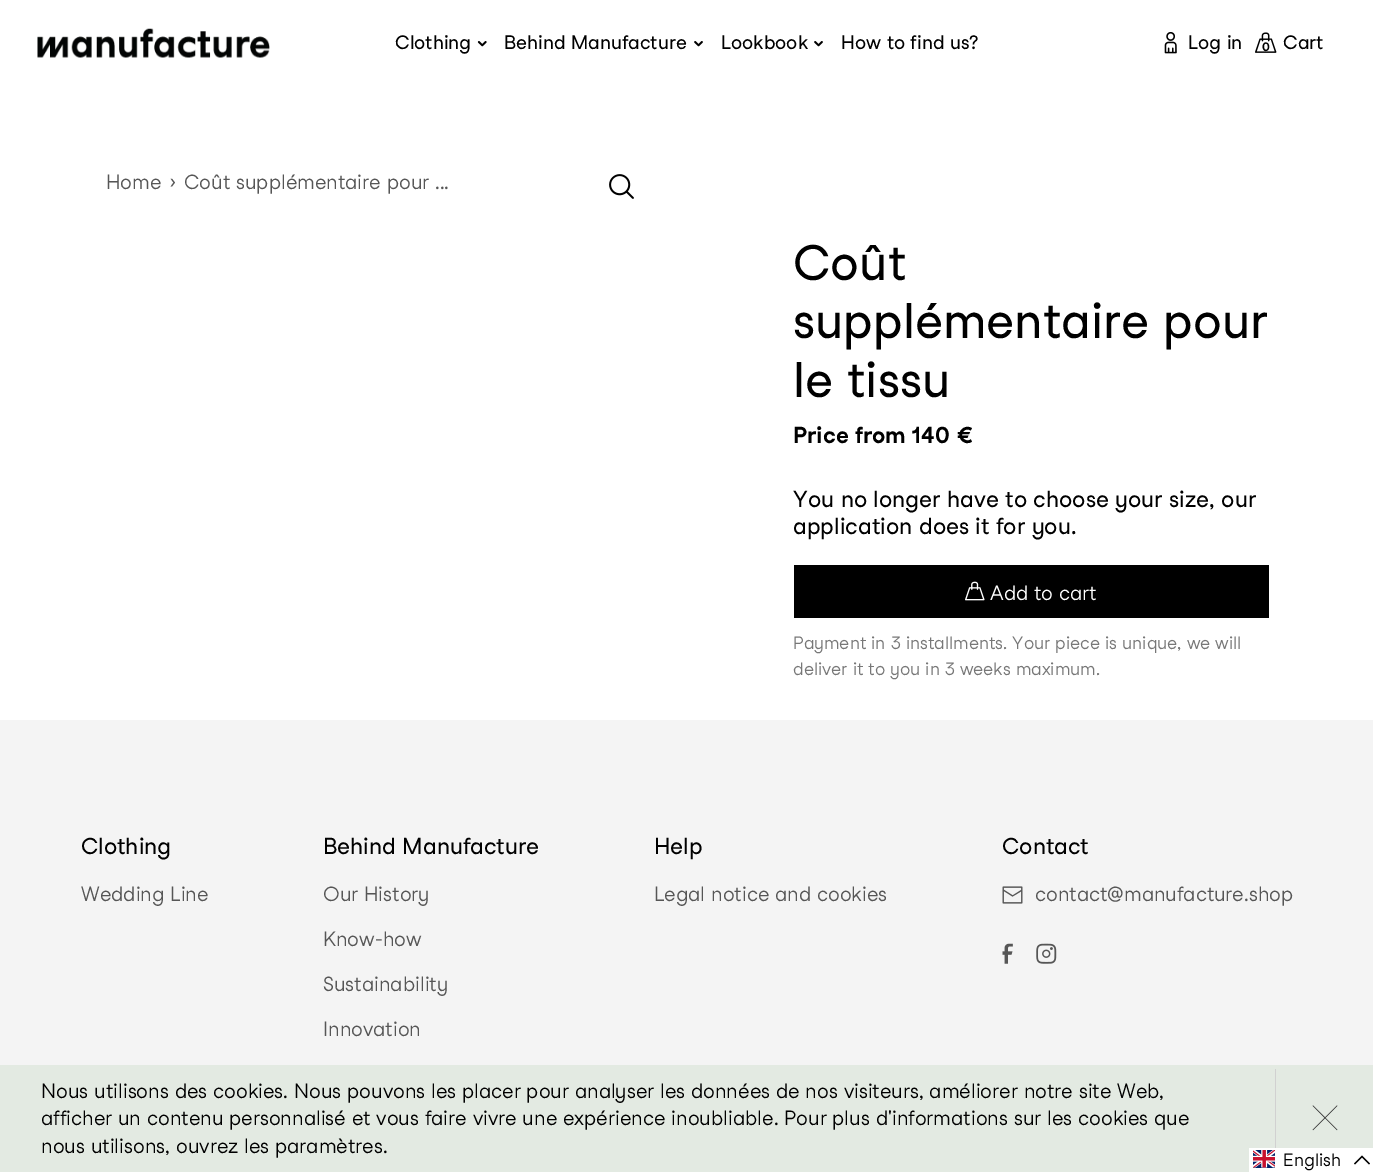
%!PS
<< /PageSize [1373 1172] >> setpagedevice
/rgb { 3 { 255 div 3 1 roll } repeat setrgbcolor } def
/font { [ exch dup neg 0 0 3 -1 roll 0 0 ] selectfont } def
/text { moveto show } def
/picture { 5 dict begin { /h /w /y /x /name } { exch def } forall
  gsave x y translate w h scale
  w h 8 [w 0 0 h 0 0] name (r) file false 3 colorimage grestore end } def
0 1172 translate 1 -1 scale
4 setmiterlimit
255 255 255 rgb
0 0 1373 1172 rectfill
(img_01.rgb) 37 28 233 30 picture
(img_02.rgb) 477 41 10 6 picture
(img_03.rgb) 694 41 9 6 picture
(img_03.rgb) 814 41 9 6 picture
(img_04.rgb) 1164 32 13 22 picture
(img_05.rgb) 1255 32 22 21 picture
(img_06.rgb) 609 174 25 25 picture
0 0 0 rgb
794 565 475 53 rectfill
(img_07.rgb) 965 581 20 20 picture
244 244 244 rgb
0 720 1373 345 rectfill
(img_08.rgb) 1002 886 21 18 picture
(img_09.rgb) 1002 943 11 21 picture
(img_10.rgb) 1036 943 21 21 picture
227 234 226 rgb
0 1065 1373 107 rectfill
209 209 209 rgb
1275 1069 1 79 rectfill
(img_11.rgb) 1312 1105 26 26 picture
255 255 255 rgb
1249 1148 124 24 rectfill
(img_12.rgb) 1253 1150 22 18 picture
0 0 0 rgb
1.2 setlinewidth
1369.5 1164 moveto -7.5 -7.5 rlineto -7.5 7.5 rlineto stroke
/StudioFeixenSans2-Regular 19 font
(Clothing) 395 49 text
(Behind Manufacture) 504 49 text
(Lookbook) 721 49 text
(How to find us?) 841 49 text
(Log in) 1188 49 text
/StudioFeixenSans-Bold 12 font
(0) 1262 51 text
/StudioFeixenSans2-Regular 19 font
(Cart) 1283 49 text
/StudioFeixenSans-Regular 20 font
86 86 86 rgb
(Home) 106 189 text
(›) 170 189 text
(Coût supplémentaire pour ...) 184 189 text
/StudioFeixenSans2-Regular 48.75 font
0 0 0 rgb
(Coût) 793 280 text
(supplémentaire pour) 793 338 text
(le tissu) 793 397 text
/StudioFeixenSans-Bold 22.5 font
(Price from 140 €) 793 443 text
/StudioFeixenSans2-Regular 22.5 font
(You no longer have to choose your size, our) 793 507 text
(application does it for you.) 793 534 text
/StudioFeixenSans-Regular 20 font
255 255 255 rgb
(Add to cart) 990 600 text
/StudioFeixenSans-Regular 17.5 font
119 119 119 rgb
(Payment in 3 installments. Your piece is unique, we will) 793 649 text
(deliver it to you in 3 weeks maximum.) 793 675 text
/StudioFeixenSans2-Regular 22.5 font
0 0 0 rgb
(Clothing) 81 854 text
/StudioFeixenSans-Regular 20 font
86 86 86 rgb
(Wedding Line) 81 901 text
/StudioFeixenSans2-Regular 22.5 font
0 0 0 rgb
(Behind Manufacture) 323 854 text
/StudioFeixenSans-Regular 20 font
86 86 86 rgb
(Our History) 323 901 text
(Know-how) 323 946 text
(Sustainability) 323 991 text
(Innovation) 323 1036 text
/StudioFeixenSans2-Regular 22.5 font
0 0 0 rgb
(Help) 654 854 text
/StudioFeixenSans-Regular 20 font
86 86 86 rgb
(Legal notice and cookies) 654 901 text
/StudioFeixenSans2-Regular 22.5 font
0 0 0 rgb
(Contact) 1002 854 text
/StudioFeixenSans-Regular 20 font
86 86 86 rgb
(contact@manufacture.shop) 1035 901 text
0 0 0 rgb
(Nous utilisons des cookies. Nous pouvons les placer pour analyser les données de nos visiteurs, améliorer notre site Web,) 41 1098 text
(afficher un contenu personnalisé et vous faire vivre une expérience inoubliable. Pour plus d'informations sur les cookies que) 41 1125 text
(nous utilisons, ouvrez les paramètres.) 41 1153 text
/StudioFeixenSans-Regular 17.5 font
(English) 1283 1166 text
showpage
